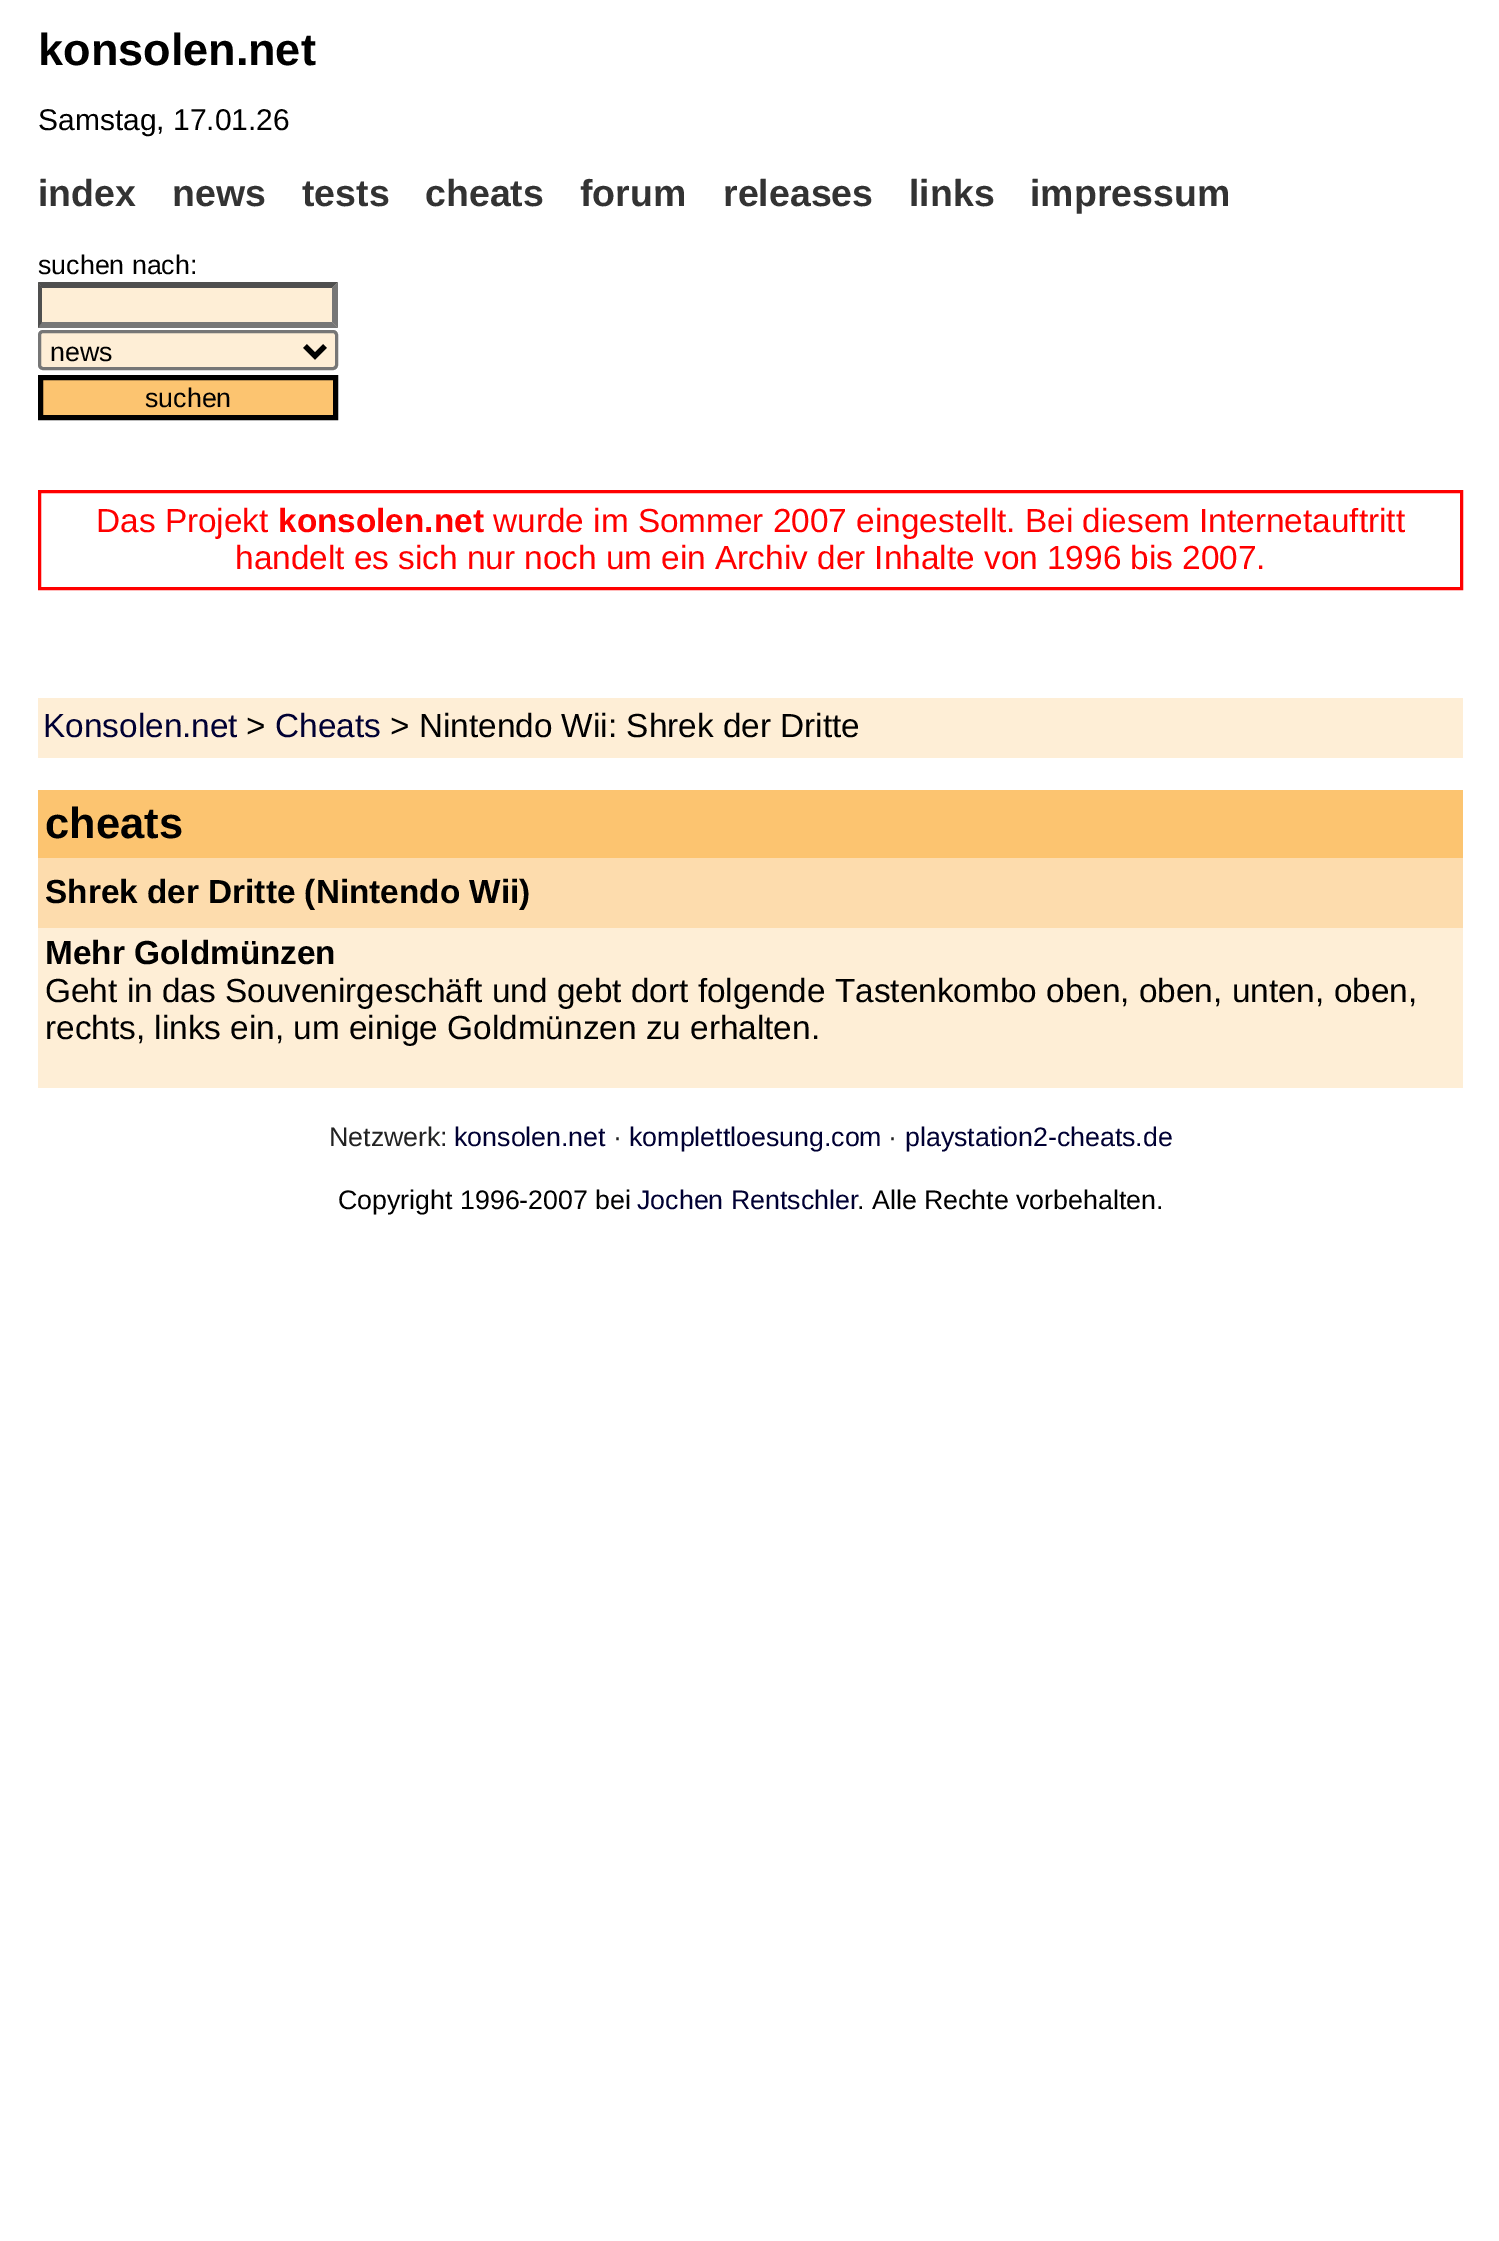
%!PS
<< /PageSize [1499 2241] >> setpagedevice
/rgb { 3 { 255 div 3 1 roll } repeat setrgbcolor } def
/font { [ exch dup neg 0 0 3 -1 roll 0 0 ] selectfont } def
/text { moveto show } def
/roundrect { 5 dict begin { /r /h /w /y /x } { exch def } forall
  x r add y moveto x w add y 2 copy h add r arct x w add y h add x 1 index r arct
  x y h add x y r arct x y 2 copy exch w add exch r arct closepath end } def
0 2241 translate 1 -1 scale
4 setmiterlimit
255 255 255 rgb
0 0 1499 2241 rectfill
254 238 214 rgb
38 283 300 45 rectfill
79 79 79 rgb
38 282 moveto 300 0 rlineto -6 6 rlineto -290 0 rlineto closepath fill
118 118 118 rgb
338 282 moveto 0 46 rlineto -6 -6 rlineto 0 -34 rlineto closepath fill
338 328 moveto -300 0 rlineto 4 -6 rlineto 290 0 rlineto closepath fill
79 79 79 rgb
38 328 moveto 0 -46 rlineto 4 6 rlineto 0 34 rlineto closepath fill
254 238 214 rgb
39.5 331.5 297 37 3.5 roundrect gsave fill grestore
118 118 118 rgb
3 setlinewidth
stroke
0 0 0 rgb
5 setlinewidth
305 346 moveto 10 10 rlineto 10 -10 rlineto stroke
252 196 112 rgb
40.5 377.5 moveto 295 0 rlineto 0 40 rlineto -295 0 rlineto closepath gsave fill grestore
0 0 0 rgb
stroke
255 0 0 rgb
3 setlinewidth
39.5 491.5 1422 97 rectstroke
254 238 214 rgb
38 698 1425 60 rectfill
252 196 112 rgb
38 790 1425 68 rectfill
253 220 173 rgb
38 858 1425 70 rectfill
254 238 214 rgb
38 928 1425 160 rectfill
/LiberationSans-Bold 45 font
0 0 0 rgb
(konsolen.net) 38 65 text
/LiberationSans-Regular 30 font
(Samstag, 17.01.26) 38 130 text
/LiberationSans-Bold 37.5 font
51 51 51 rgb
(index) 38 206 text
(news) 172 206 text
(tests) 302 206 text
(cheats) 425 206 text
(forum) 580 206 text
(releases) 723 206 text
(links) 909 206 text
(impressum) 1030 206 text
/LiberationSans-Regular 26.75 font
0 0 0 rgb
(suchen nach:) 38 274 text
(news) 50 361 text
(suchen) 145 407 text
/LiberationSans-Regular 33.35 font
255 0 0 rgb
(Das Projekt) 96 532 text
/LiberationSans-Bold 33.35 font
(konsolen.net) 278 532 text
/LiberationSans-Regular 33.35 font
(wurde im Sommer 2007 eingestellt. Bei diesem Internetauftritt) 493 532 text
(handelt es sich nur noch um ein Archiv der Inhalte von 1996 bis 2007.) 235 569 text
0 0 51 rgb
(Konsolen.net) 43 737 text
0 0 0 rgb
(>) 246 737 text
0 0 51 rgb
(Cheats) 275 737 text
0 0 0 rgb
(> Nintendo Wii: Shrek der Dritte) 390 737 text
/LiberationSans-Bold 43.5 font
(cheats) 45 838 text
/LiberationSans-Bold 33.35 font
(Shrek der Dritte \(Nintendo Wii\)) 45 903 text
(Mehr Goldmünzen) 45 964 text
/LiberationSans-Regular 33.35 font
(Geht in das Souvenirgeschäft und gebt dort folgende Tastenkombo oben, oben, unten, oben,) 45 1002 text
(rechts, links ein, um einige Goldmünzen zu erhalten.) 45 1039 text
/LiberationSans-Regular 26.75 font
34 34 34 rgb
(Netzwerk:) 329 1146 text
0 0 51 rgb
(konsolen.net) 454 1146 text
34 34 34 rgb
(·) 613 1146 text
0 0 51 rgb
(komplettloesung.com) 629 1146 text
34 34 34 rgb
(·) 888 1146 text
0 0 51 rgb
(playstation2-cheats.de) 905 1146 text
0 0 0 rgb
(Copyright 1996-2007 bei) 338 1209 text
0 0 51 rgb
(Jochen Rentschler) 637 1209 text
0 0 0 rgb
(. Alle Rechte vorbehalten.) 857 1209 text
showpage
